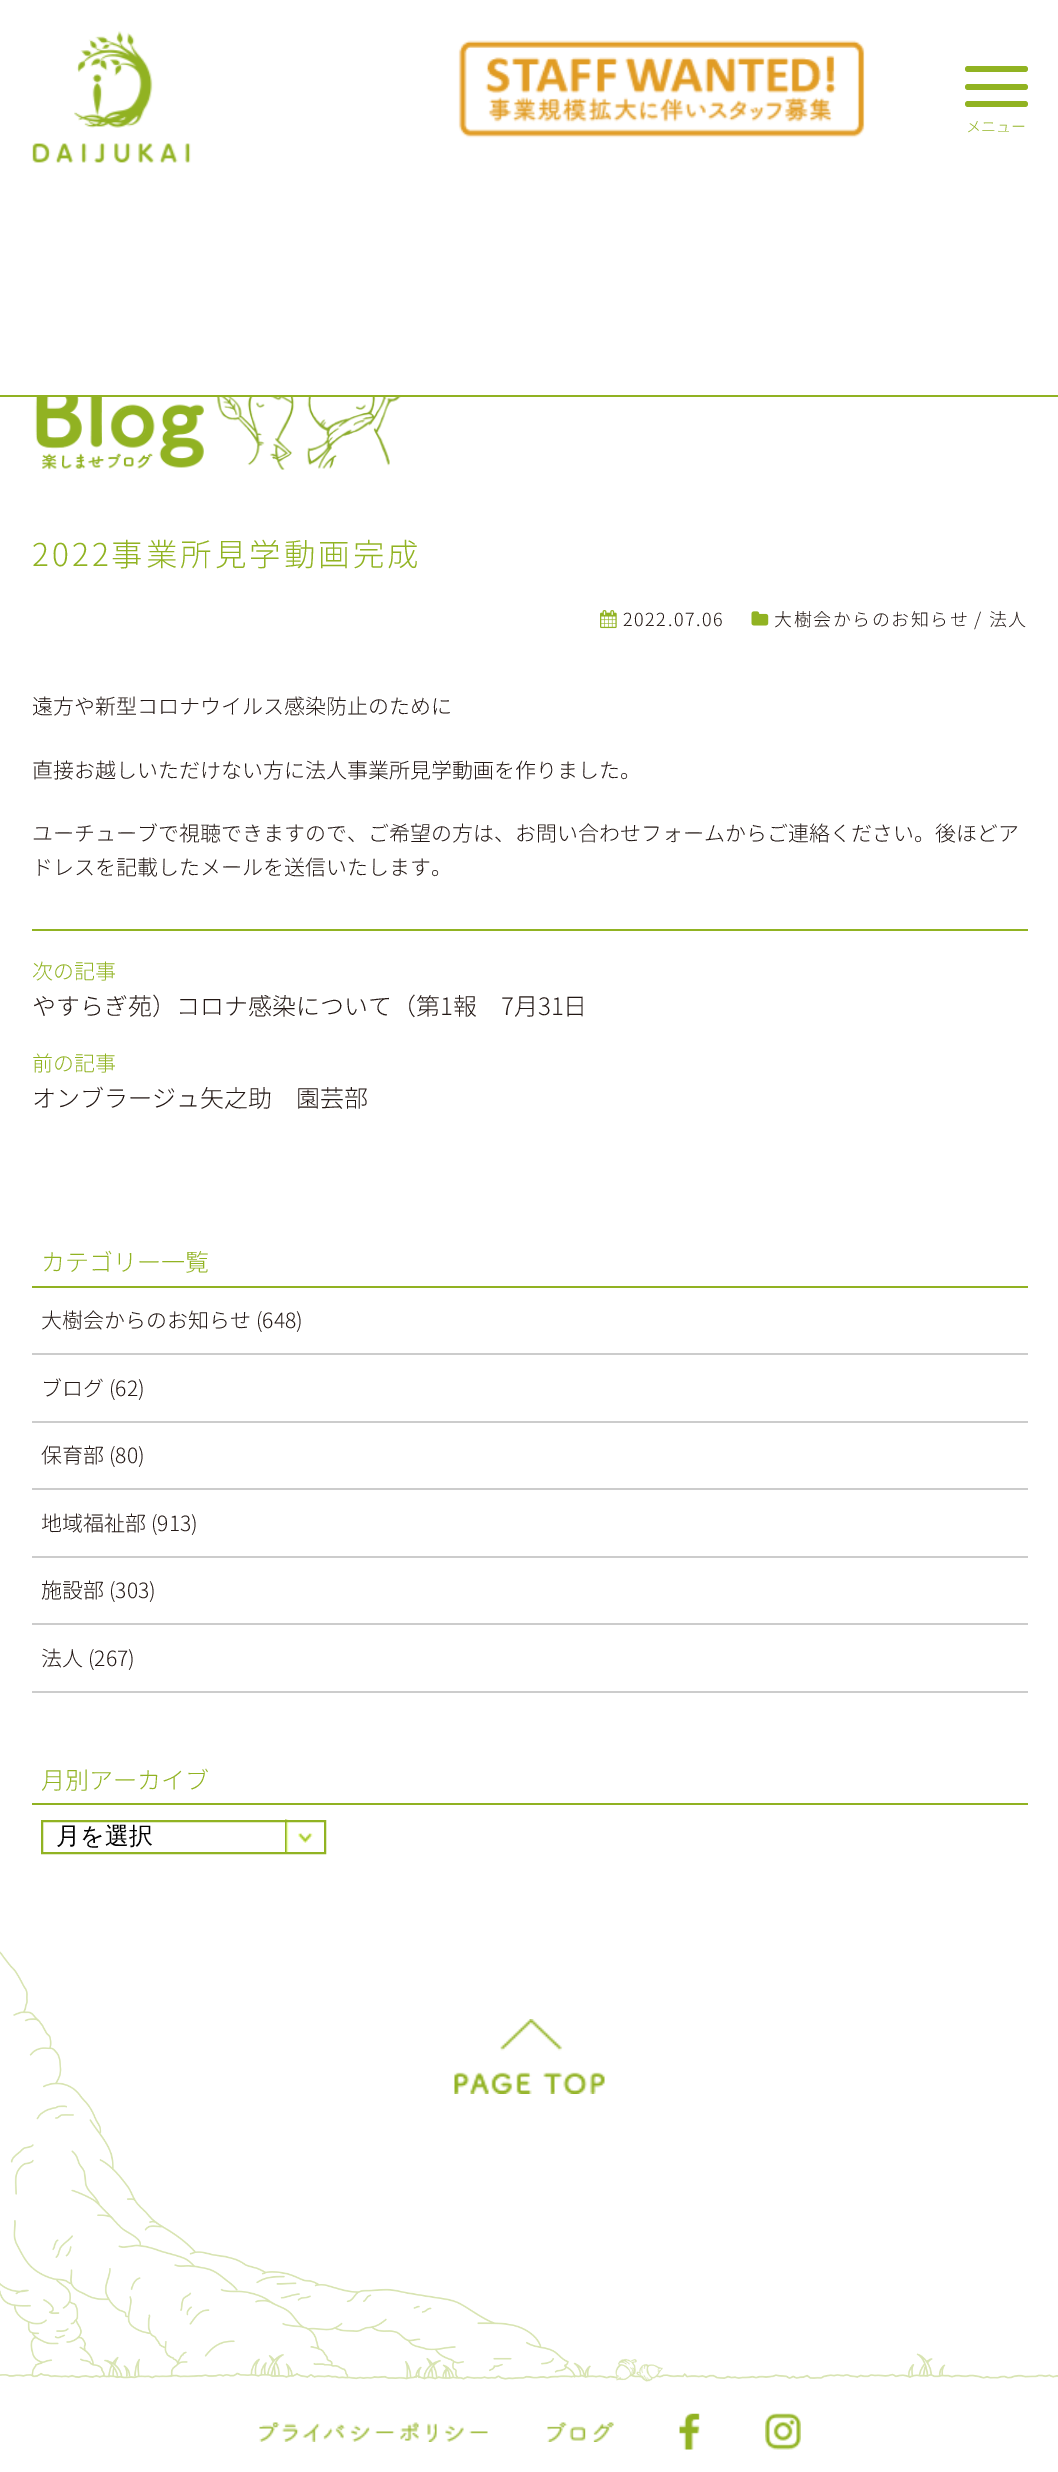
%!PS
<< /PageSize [1058 2472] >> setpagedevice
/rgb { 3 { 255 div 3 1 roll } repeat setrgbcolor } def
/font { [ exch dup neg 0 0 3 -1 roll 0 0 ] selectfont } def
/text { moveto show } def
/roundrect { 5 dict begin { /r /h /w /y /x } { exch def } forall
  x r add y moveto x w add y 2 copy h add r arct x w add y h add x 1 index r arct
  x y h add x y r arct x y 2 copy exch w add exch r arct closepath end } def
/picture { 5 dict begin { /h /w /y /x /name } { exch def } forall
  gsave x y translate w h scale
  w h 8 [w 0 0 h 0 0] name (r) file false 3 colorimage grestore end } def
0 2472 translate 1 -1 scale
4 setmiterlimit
255 255 255 rgb
0 0 1058 2472 rectfill
(img_01.rgb) 0 1951 1058 431 picture
145 178 34 rgb
0 395 1058 2 rectfill
(img_02.rgb) 32 31 159 132 picture
(img_03.rgb) 458 40 407 98 picture
145 179 34 rgb
965 66 63 6 3 roundrect fill
965 84 63 6 3 roundrect fill
965 101 63 6 3 roundrect fill
(img_04.rgb) 35 397 366 73 picture
(img_05.rgb) 600 610 17 19 picture
(img_06.rgb) 751 611 18 15 picture
32 929 996 2 rectfill
145 178 34 rgb
32 1286 996 2 rectfill
204 204 204 rgb
32 1353 996 2 rectfill
32 1421 996 2 rectfill
32 1488 996 2 rectfill
32 1556 996 2 rectfill
32 1623 996 2 rectfill
32 1691 996 2 rectfill
145 178 34 rgb
32 1803 996 2 rectfill
(img_07.rgb) 285 1819 28 33 picture
145 179 34 rgb
2 setlinewidth
42 1821 283 32 rectstroke
(img_08.rgb) 454 2019 151 75 picture
(img_09.rgb) 259 2422 229 20 picture
(img_10.rgb) 547 2422 67 20 picture
(img_11.rgb) 679 2413 21 37 picture
(img_12.rgb) 765 2413 36 37 picture
/NotoSansJP-Light 15 font
(メニュー) 966 132 text
/NotoSansJP-Light 31.5 font
32 566 moveto 3 0 (2022事業所見学動画完成) ashow
/NotoSansJP-Light 18 font
35 24 21 rgb
623 626 moveto 1.5 0 (2022.07.06) ashow
774 626 moveto 1.5 0 (大樹会からのお知らせ / 法人) ashow
/NotoSansJP-Light 21 font
(遠方や新型コロナウイルス感染防止のために) 32 714 text
(直接お越しいただけない方に法人事業所見学動画を作りました。) 32 778 text
(ユーチューブで視聴できますので、ご希望の方は、お問い合わせフォームからご連絡ください。後ほどア) 32 841 text
(ドレスを記載したメールを送信いたします。) 32 875 text
145 179 34 rgb
(次の記事) 32 979 text
/NotoSansJP-Light 24 font
35 24 21 rgb
(やすらぎ苑）コロナ感染について（第1報　7月31日) 32 1015 text
/NotoSansJP-Light 21 font
145 179 34 rgb
(前の記事) 32 1071 text
/NotoSansJP-Light 24 font
35 24 21 rgb
(オンブラージュ矢之助　園芸部) 32 1107 text
145 179 34 rgb
(カテゴリー一覧) 41 1271 text
/NotoSansJP-Light 21 font
35 24 21 rgb
(大樹会からのお知らせ \(648\)) 41 1328 text
(ブログ \(62\)) 41 1396 text
(保育部 \(80\)) 41 1463 text
(地域福祉部 \(913\)) 41 1531 text
(施設部 \(303\)) 41 1598 text
(法人 \(267\)) 41 1666 text
/NotoSansJP-Light 24 font
145 179 34 rgb
(月別アーカイブ) 41 1789 text
/WenQuanYiZenHei-Medium 24 font
0 0 0 rgb
(月を選択) 56 1844 text
showpage
